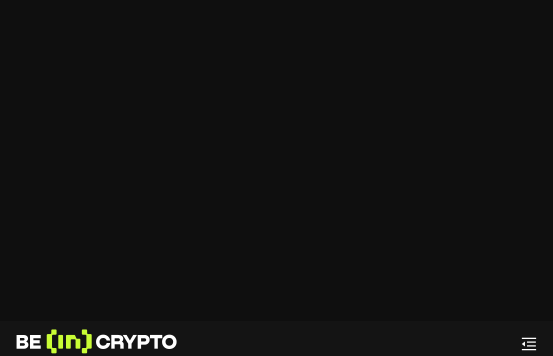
%!PS
<< /PageSize [553 356] >> setpagedevice
/rgb { 3 { 255 div 3 1 roll } repeat setrgbcolor } def
/picture { 5 dict begin { /h /w /y /x /name } { exch def } forall
  gsave x y translate w h scale
  w h 8 [w 0 0 h 0 0] name (r) file false 3 colorimage grestore end } def
0 356 translate 1 -1 scale
4 setmiterlimit
15 15 15 rgb
0 0 553 356 rectfill
20 20 20 rgb
0 321 553 35 rectfill
(img_01.rgb) 16 329 161 25 picture
(img_02.rgb) 521 337 16 14 picture
showpage
